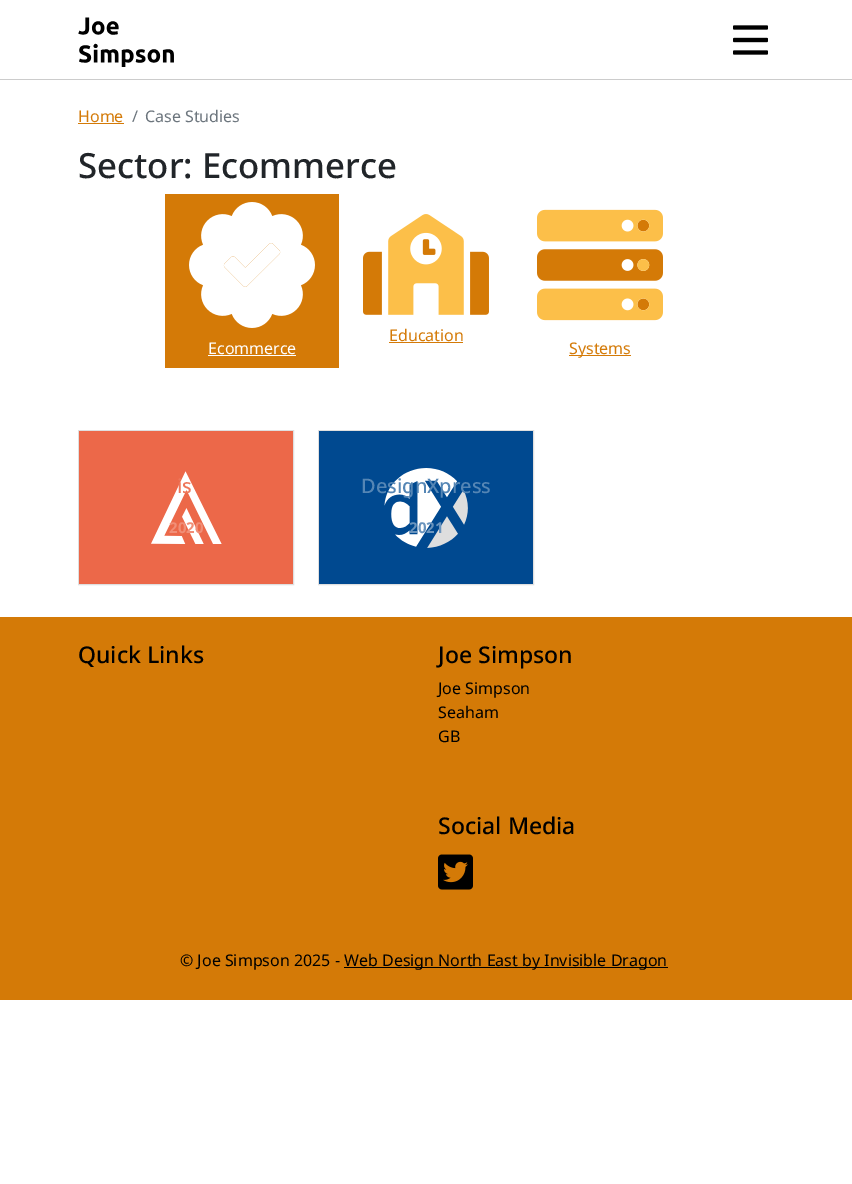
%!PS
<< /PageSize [852 1184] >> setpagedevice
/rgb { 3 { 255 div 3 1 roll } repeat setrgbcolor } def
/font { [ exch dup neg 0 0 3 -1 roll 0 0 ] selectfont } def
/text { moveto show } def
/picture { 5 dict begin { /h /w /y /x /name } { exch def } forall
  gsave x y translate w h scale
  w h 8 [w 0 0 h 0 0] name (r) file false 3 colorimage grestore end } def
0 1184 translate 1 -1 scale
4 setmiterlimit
255 255 255 rgb
0 0 852 1184 rectfill
204 204 204 rgb
0 79 852 1 rectfill
(img_01.rgb) 78 17 96 50 picture
(img_02.rgb) 733 25 35 30 picture
212 122 7 rgb
78 123 46 1 rectfill
(img_03.rgb) 363 214 126 101 picture
389 342 74 1 rectfill
165 194 174 174 rectfill
(img_04.rgb) 189 202 126 126 picture
255 255 255 rgb
208 355 88 1 rectfill
(img_05.rgb) 537 209 126 112 picture
212 122 7 rgb
569 355 62 1 rectfill
223 223 223 rgb
78.5 430.5 215 154 rectstroke
(img_06.rgb) 79 431 214 153 picture
318.5 430.5 215 154 rectstroke
(img_07.rgb) 319 431 214 153 picture
212 122 7 rgb
0 617 852 383 rectfill
(img_08.rgb) 438 854 35 36 picture
0 0 0 rgb
344 967 324 1 rectfill
/NotoSans-Regular 16 font
212 122 7 rgb
(Home) 78 122 text
108 117 125 rgb
(/) 132 122 text
(Case Studies) 145 122 text
/NotoSans-Medium 34.75 font
33 37 41 rgb
(Sector: Ecommerce) 78 178 text
/NotoSans-Regular 16 font
212 122 7 rgb
(Education) 389 341 text
255 255 255 rgb
(Ecommerce) 208 354 text
212 122 7 rgb
(Systems) 569 354 text
/NotoSans-Medium 20 font
238 119 91 rgb
(is) 177 493 text
/NotoSans-Bold 15 font
241 142 119 rgb
(2020) 169 533 text
/NotoSans-Medium 20 font
85 134 181 rgb
(DesignXpress) 361 493 text
/NotoSans-Bold 15 font
106 148 189 rgb
(2021) 409 533 text
/NotoSans-Medium 23 font
0 0 0 rgb
(Quick Links) 78 663 text
(Joe Simpson) 438 663 text
/NotoSans-Regular 16 font
(Joe Simpson) 438 694 text
(Seaham) 438 718 text
(GB) 438 742 text
/NotoSans-Medium 23 font
(Social Media) 438 834 text
/NotoSans-Regular 16 font
(© Joe Simpson 2025 -) 180 966 text
(Web Design North East by Invisible Dragon) 344 966 text
showpage
